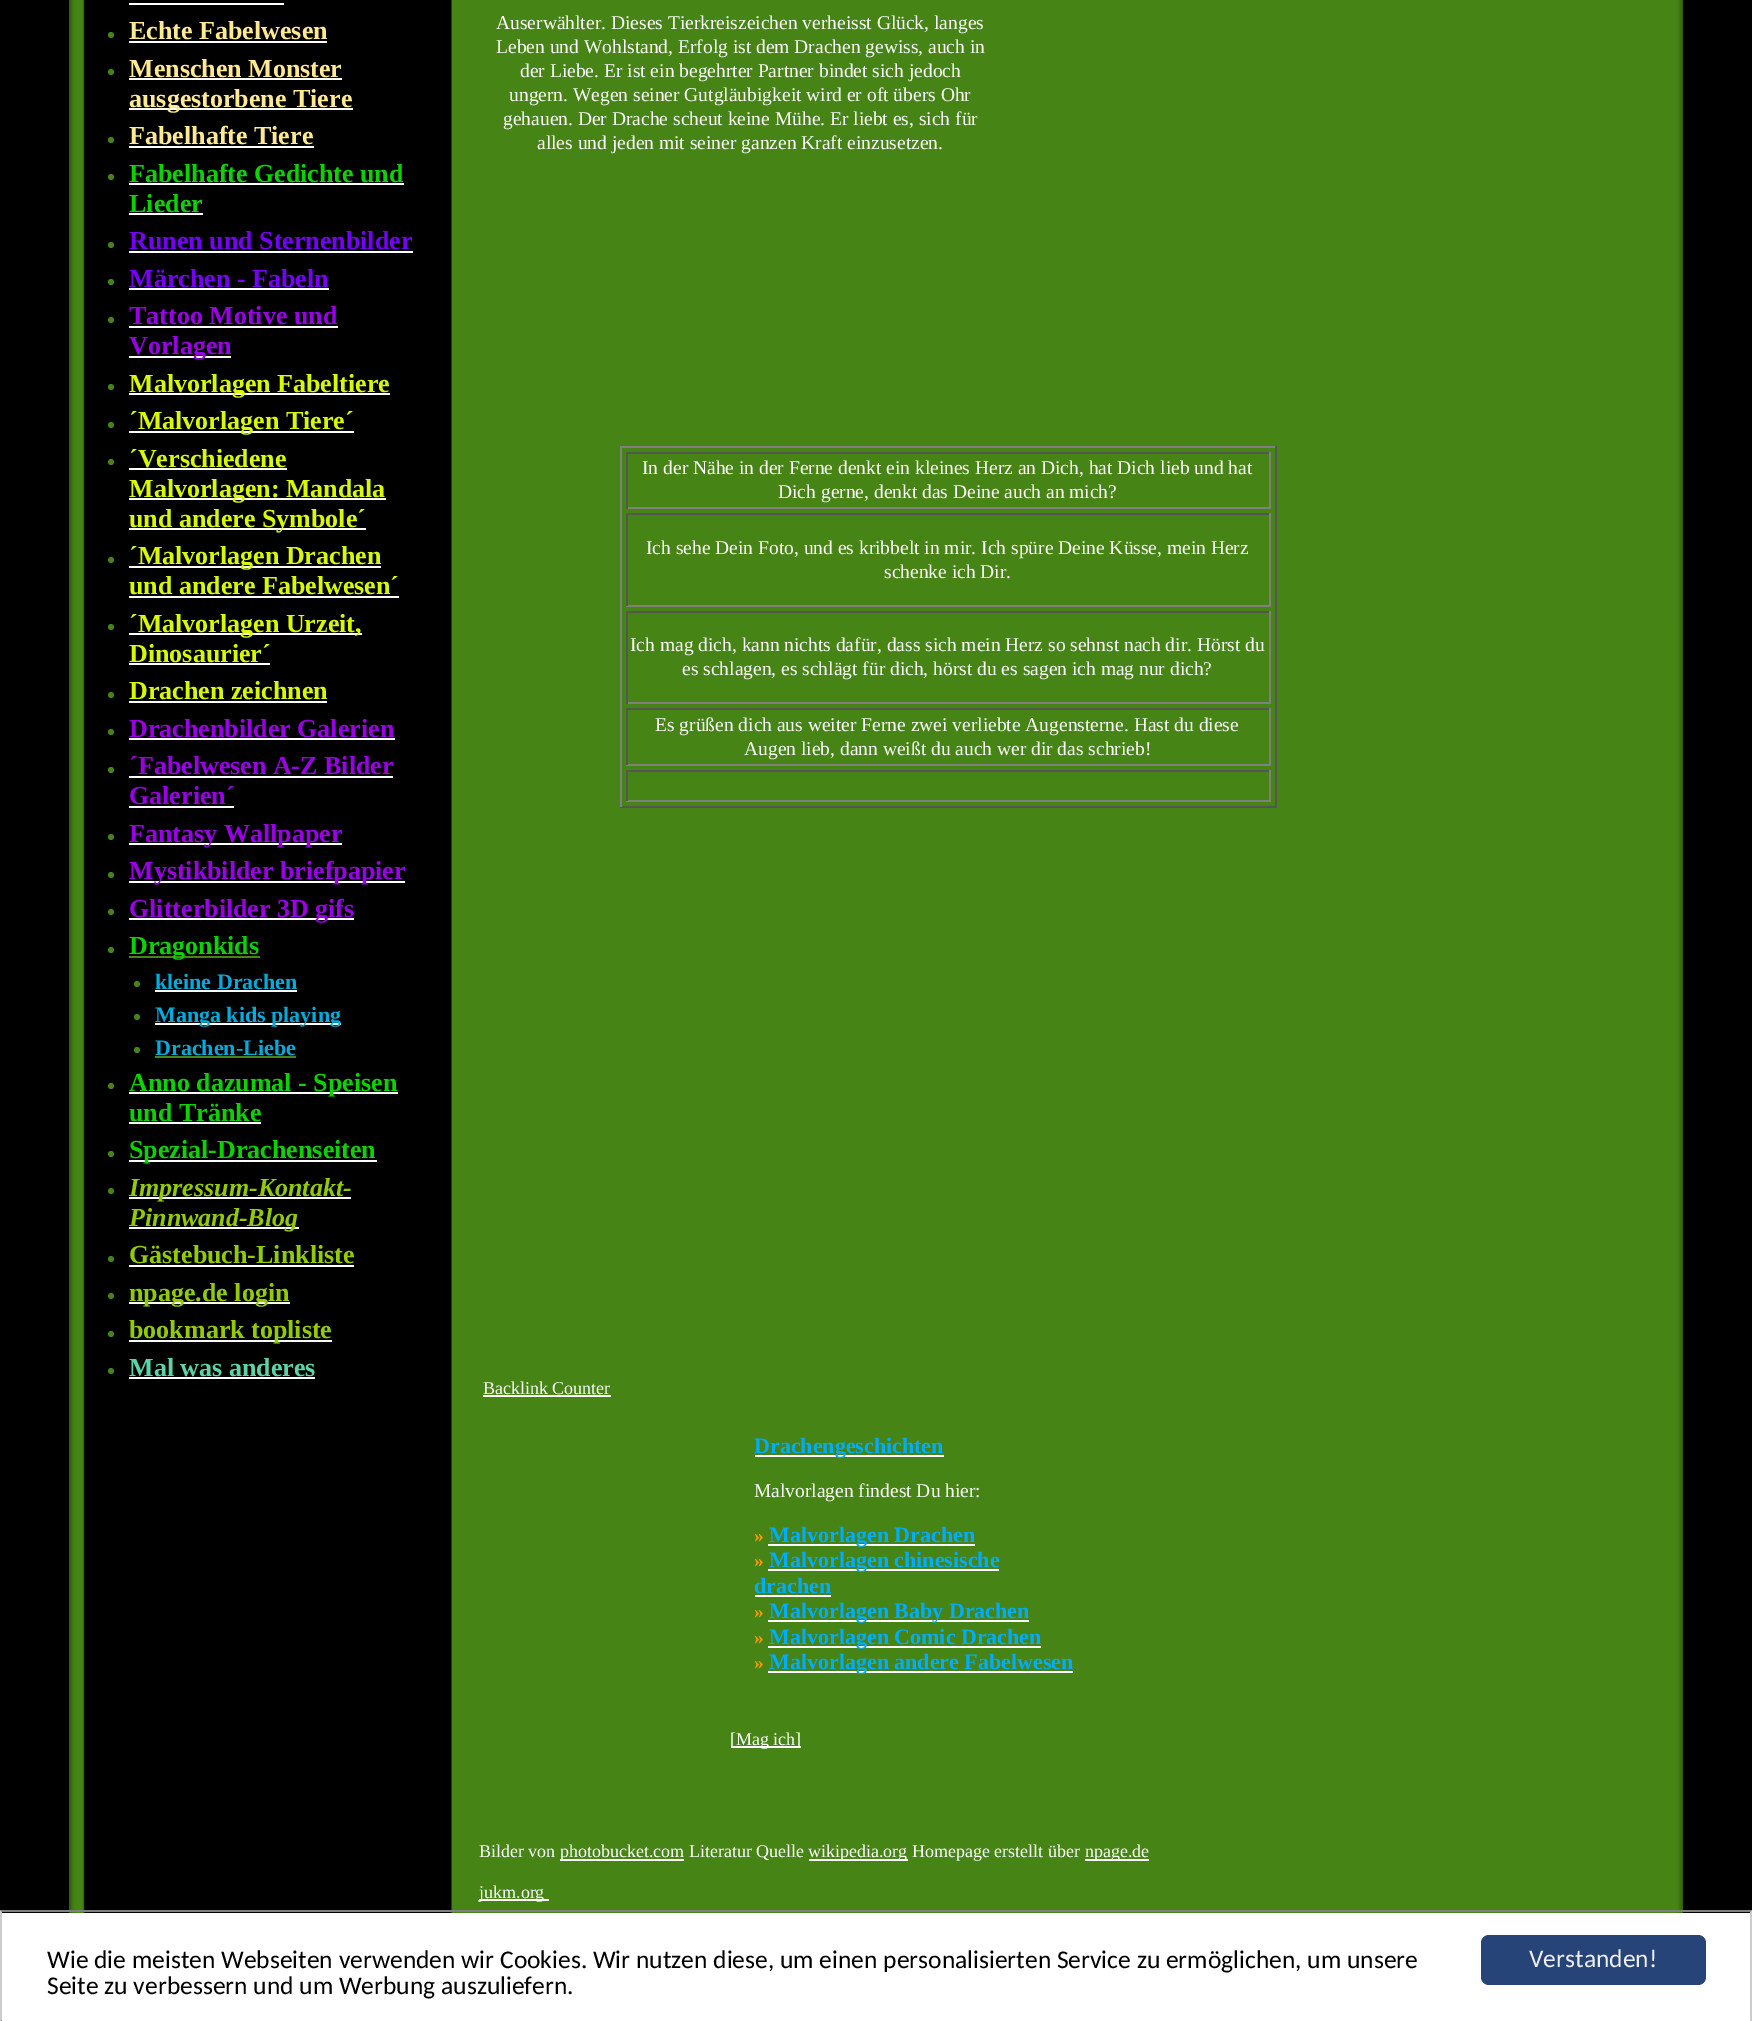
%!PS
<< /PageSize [1752 2021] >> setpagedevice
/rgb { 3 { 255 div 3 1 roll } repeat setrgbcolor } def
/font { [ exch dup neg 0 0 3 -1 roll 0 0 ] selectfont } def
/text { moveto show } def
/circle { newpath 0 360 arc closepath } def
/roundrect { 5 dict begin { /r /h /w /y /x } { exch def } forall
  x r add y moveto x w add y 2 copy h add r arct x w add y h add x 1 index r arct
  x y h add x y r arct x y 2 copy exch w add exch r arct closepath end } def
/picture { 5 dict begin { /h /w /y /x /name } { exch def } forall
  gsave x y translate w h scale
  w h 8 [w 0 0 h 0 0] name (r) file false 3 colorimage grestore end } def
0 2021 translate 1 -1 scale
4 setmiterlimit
0 0 0 rgb
0 0 1752 2021 rectfill
(img_01.rgb) 69 0 1614 1913 picture
255 255 255 rgb
129 3 155 2 rectfill
70 132 21 rgb
111 35 3 circle fill
255 255 255 rgb
129 41 198 2 rectfill
70 132 21 rgb
111 72 3 circle fill
255 255 255 rgb
129 78 213 2 rectfill
129 108 224 2 rectfill
70 132 21 rgb
111 140 3 circle fill
255 255 255 rgb
129 146 185 2 rectfill
70 132 21 rgb
111 177 3 circle fill
255 255 255 rgb
129 183 275 2 rectfill
129 213 74 2 rectfill
70 132 21 rgb
111 245 3 circle fill
255 255 255 rgb
129 251 284 2 rectfill
70 132 21 rgb
111 282 3 circle fill
255 255 255 rgb
129 288 200 2 rectfill
70 132 21 rgb
111 320 3 circle fill
255 255 255 rgb
129 326 209 2 rectfill
129 356 102 2 rectfill
70 132 21 rgb
111 387 3 circle fill
255 255 255 rgb
129 393 261 2 rectfill
70 132 21 rgb
111 425 3 circle fill
255 255 255 rgb
129 431 225 2 rectfill
70 132 21 rgb
111 462 3 circle fill
255 255 255 rgb
129 468 158 2 rectfill
129 498 257 2 rectfill
129 528 237 2 rectfill
70 132 21 rgb
111 560 3 circle fill
255 255 255 rgb
129 566 252 2 rectfill
129 596 270 2 rectfill
70 132 21 rgb
111 627 3 circle fill
255 255 255 rgb
129 633 233 2 rectfill
129 663 141 2 rectfill
70 132 21 rgb
111 695 3 circle fill
255 255 255 rgb
129 701 198 2 rectfill
70 132 21 rgb
111 732 3 circle fill
255 255 255 rgb
129 738 266 2 rectfill
70 132 21 rgb
111 770 3 circle fill
255 255 255 rgb
129 776 264 2 rectfill
129 806 105 2 rectfill
70 132 21 rgb
111 837 3 circle fill
255 255 255 rgb
129 843 213 2 rectfill
70 132 21 rgb
111 875 3 circle fill
255 255 255 rgb
129 881 276 2 rectfill
70 132 21 rgb
111 912 3 circle fill
255 255 255 rgb
129 918 225 2 rectfill
70 132 21 rgb
111 950 3 circle fill
129 956 131 2 rectfill
137 984 3 circle fill
255 255 255 rgb
155 990 142 2 rectfill
70 132 21 rgb
137 1017 3 circle fill
255 255 255 rgb
155 1023 186 2 rectfill
70 132 21 rgb
137 1050 3 circle fill
155 1056 141 2 rectfill
111 1086 3 circle fill
255 255 255 rgb
129 1092 269 2 rectfill
129 1122 132 2 rectfill
70 132 21 rgb
111 1154 3 circle fill
255 255 255 rgb
129 1160 248 2 rectfill
70 132 21 rgb
111 1191 3 circle fill
255 255 255 rgb
129 1197 222 2 rectfill
129 1227 170 2 rectfill
70 132 21 rgb
111 1259 3 circle fill
255 255 255 rgb
129 1265 225 2 rectfill
70 132 21 rgb
111 1296 3 circle fill
255 255 255 rgb
129 1302 161 2 rectfill
70 132 21 rgb
111 1334 3 circle fill
255 255 255 rgb
129 1340 203 2 rectfill
70 132 21 rgb
111 1371 3 circle fill
255 255 255 rgb
129 1377 186 2 rectfill
128 128 128 rgb
620 446 657 2 rectfill
85 85 85 rgb
1275 446 2 361 rectfill
620 806 657 2 rectfill
128 128 128 rgb
620 446 2 361 rectfill
85 85 85 rgb
626 452 645 2 rectfill
128 128 128 rgb
1269 452 2 57 rectfill
626 507 645 2 rectfill
85 85 85 rgb
626 452 2 57 rectfill
626 513 645 2 rectfill
128 128 128 rgb
1269 513 2 93 rectfill
626 605 645 2 rectfill
85 85 85 rgb
626 513 2 93 rectfill
626 611 645 2 rectfill
128 128 128 rgb
1269 611 2 93 rectfill
626 702 645 2 rectfill
85 85 85 rgb
626 611 2 93 rectfill
626 708 645 2 rectfill
128 128 128 rgb
1269 708 2 57 rectfill
626 764 645 2 rectfill
85 85 85 rgb
626 708 2 57 rectfill
626 770 645 2 rectfill
128 128 128 rgb
1269 770 2 31 rectfill
626 800 645 2 rectfill
85 85 85 rgb
626 770 2 31 rectfill
255 255 255 rgb
483 1395 128 2 rectfill
755 1455 189 2 rectfill
768 1544 207 2 rectfill
768 1569 231 2 rectfill
755 1595 76 2 rectfill
768 1620 261 2 rectfill
768 1646 273 2 rectfill
768 1671 305 2 rectfill
731 1746 70 2 rectfill
560 1859 124 2 rectfill
809 1859 99 2 rectfill
1085 1859 64 2 rectfill
479 1899 70 2 rectfill
2 1913 1749 108 rectfill
128 128 128 rgb
0 1910 moveto 1752 0 rlineto -2 2 rlineto -1748 0 rlineto closepath fill
204 204 204 rgb
1752 1910 moveto 0 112 rlineto -2 -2 rlineto 0 -108 rlineto closepath fill
0 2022 moveto 0 -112 rlineto 2 2 rlineto 0 108 rlineto closepath fill
39 68 121 rgb
1481 1935 225 50 8 roundrect fill
/LiberationSerif-Bold 26 font
255 233 147 rgb
(Echte Fabelwesen) 129 39 text
(Menschen Monster) 129 77 text
(ausgestorbene Tiere) 129 107 text
(Fabelhafte Tiere) 129 144 text
13 209 0 rgb
(Fabelhafte Gedichte und) 129 182 text
(Lieder) 129 212 text
118 0 244 rgb
(Runen und Sternenbilder) 129 249 text
(Märchen - Fabeln) 129 287 text
153 0 229 rgb
(Tattoo Motive und) 129 324 text
(Vorlagen) 129 354 text
216 249 0 rgb
(Malvorlagen Fabeltiere) 129 392 text
(´Malvorlagen Tiere´) 129 429 text
(´Verschiedene) 129 467 text
(Malvorlagen: Mandala) 129 497 text
(und andere Symbole´) 129 527 text
(´Malvorlagen Drachen) 129 564 text
(und andere Fabelwesen´) 129 594 text
(´Malvorlagen Urzeit,) 129 632 text
(Dinosaurier´) 129 662 text
(Drachen zeichnen) 129 699 text
153 0 229 rgb
(Drachenbilder Galerien) 129 737 text
(´Fabelwesen A-Z Bilder) 129 774 text
(Galerien´) 129 804 text
(Fantasy Wallpaper) 129 842 text
(Mystikbilder briefpapier) 129 879 text
(Glitterbilder 3D gifs) 129 917 text
13 209 0 rgb
(Dragonkids) 129 954 text
/LiberationSerif-Bold 22 font
0 172 220 rgb
(kleine Drachen) 155 989 text
(Manga kids playing) 155 1022 text
(Drachen-Liebe) 155 1055 text
/LiberationSerif-Bold 26 font
13 209 0 rgb
(Anno dazumal - Speisen) 129 1091 text
(und Tränke) 129 1121 text
(Spezial-Drachenseiten) 129 1158 text
/LiberationSerif-BoldItalic 26 font
146 204 0 rgb
(Impressum-Kontakt-) 129 1196 text
(Pinnwand-Blog) 129 1226 text
/LiberationSerif-Bold 26 font
(Gästebuch-Linkliste) 129 1263 text
(npage.de login) 129 1301 text
(bookmark topliste) 129 1338 text
93 211 168 rgb
(Mal was anderes) 129 1376 text
/LiberationSerif-Regular 19.5 font
255 255 255 rgb
(Auserwählter. Dieses Tierkreiszeichen verheisst Glück, langes) 496 29 text
(Leben und Wohlstand, Erfolg ist dem Drachen gewiss, auch in) 496 53 text
(der Liebe. Er ist ein begehrter Partner bindet sich jedoch) 520 77 text
(ungern. Wegen seiner Gutgläubigkeit wird er oft übers Ohr) 509 101 text
(gehauen. Der Drache scheut keine Mühe. Er liebt es, sich für) 503 125 text
(alles und jeden mit seiner ganzen Kraft einzusetzen.) 537 149 text
(In der Nähe in der Ferne denkt ein kleines Herz an Dich, hat Dich lieb und hat) 642 474 text
(Dich gerne, denkt das Deine auch an mich?) 778 498 text
(Ich sehe Dein Foto, und es kribbelt in mir. Ich spüre Deine Küsse, mein Herz) 646 554 text
(schenke ich Dir.) 884 578 text
(Ich mag dich, kann nichts dafür, dass sich mein Herz so sehnst nach dir. Hörst du) 630 651 text
(es schlagen, es schlägt für dich, hörst du es sagen ich mag nur dich?) 682 675 text
(Es grüßen dich aus weiter Ferne zwei verliebte Augensterne. Hast du diese) 655 731 text
(Augen lieb, dann weißt du auch wer dir das schrieb!) 744 755 text
/LiberationSerif-Regular 18 font
(Backlink Counter) 483 1394 text
/LiberationSerif-Bold 22 font
0 172 252 rgb
(Drachengeschichten) 754 1453 text
/LiberationSerif-Regular 19.5 font
255 255 255 rgb
(Malvorlagen findest Du hier:) 754 1497 text
/LiberationSerif-Bold 19.5 font
255 153 0 rgb
(») 754 1542 text
/LiberationSerif-Bold 22 font
0 172 252 rgb
(Malvorlagen Drachen) 769 1542 text
/LiberationSerif-Bold 19.5 font
255 153 0 rgb
(») 754 1567 text
/LiberationSerif-Bold 22 font
0 172 252 rgb
(Malvorlagen chinesische) 769 1567 text
(drachen) 754 1593 text
/LiberationSerif-Bold 19.5 font
255 153 0 rgb
(») 754 1618 text
/LiberationSerif-Bold 22 font
0 172 252 rgb
(Malvorlagen Baby Drachen) 769 1618 text
/LiberationSerif-Bold 19.5 font
255 153 0 rgb
(») 754 1644 text
/LiberationSerif-Bold 22 font
0 172 252 rgb
(Malvorlagen Comic Drachen) 769 1644 text
/LiberationSerif-Bold 19.5 font
255 153 0 rgb
(») 754 1669 text
/LiberationSerif-Bold 22 font
0 172 252 rgb
(Malvorlagen andere Fabelwesen) 769 1669 text
/LiberationSerif-Regular 18 font
255 255 255 rgb
([Mag ich]) 730 1745 text
(Bilder von) 479 1857 text
(photobucket.com Literatur Quelle) 560 1857 text
(wikipedia.org Homepage erstellt über) 808 1857 text
(npage.de) 1085 1857 text
(jukm.org) 479 1898 text
/Carlito-Regular 25.5 font
0 0 0 rgb
(Wie die meisten Webseiten verwenden wir Cookies. Wir nutzen diese, um einen personalisierten Service zu ermöglichen, um unsere) 47 1968 text
(Seite zu verbessern und um Werbung auszuliefern.) 47 1994 text
238 238 238 rgb
(Verstanden!) 1529 1967 text
showpage
